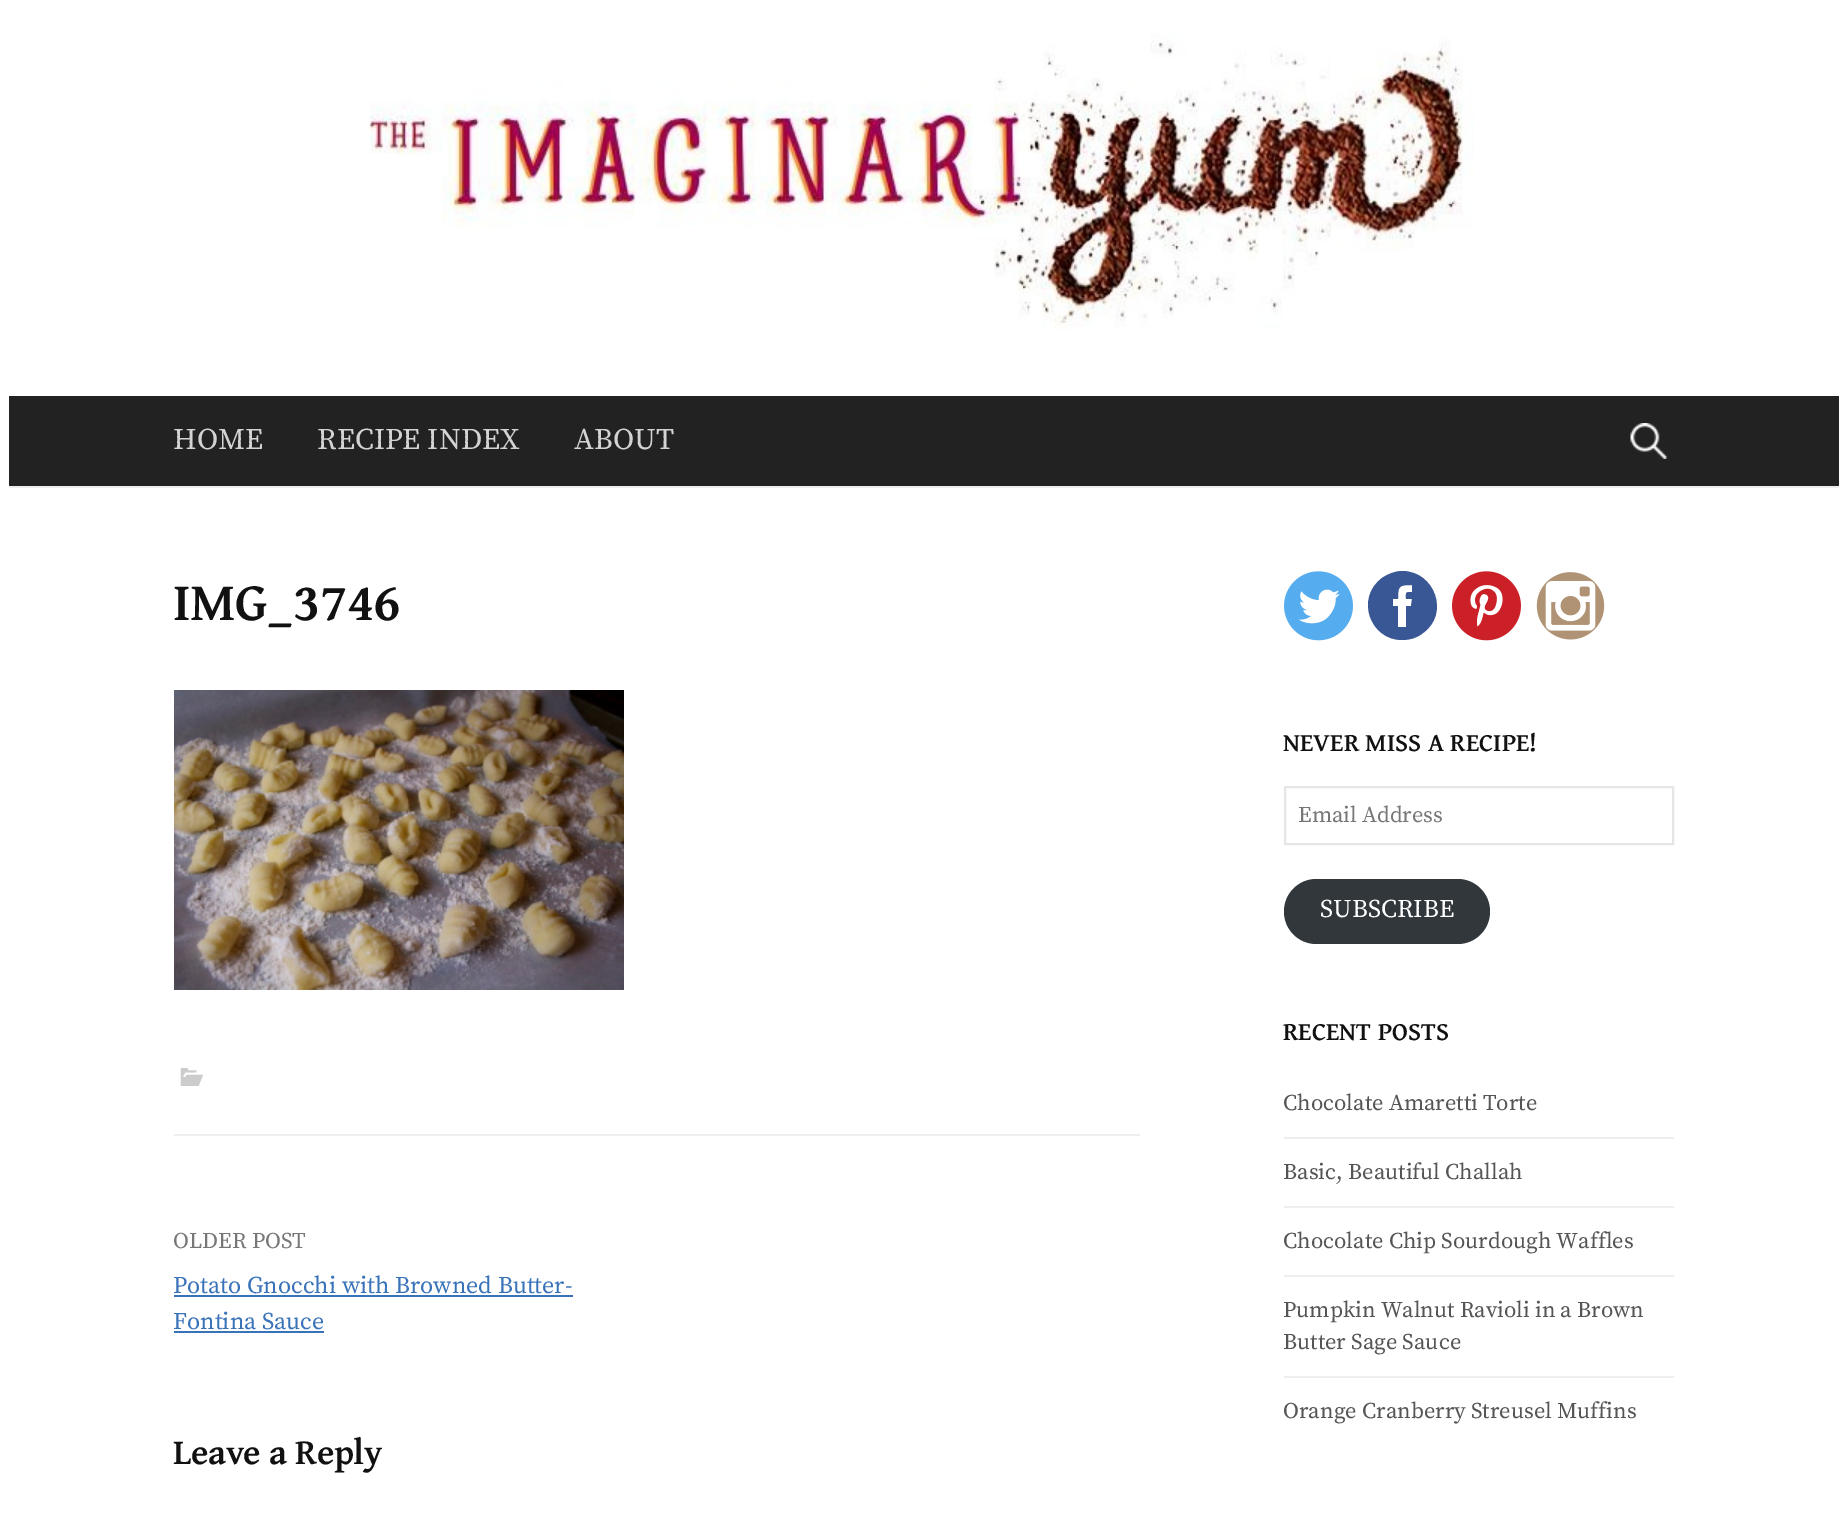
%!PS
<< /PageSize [1846 1521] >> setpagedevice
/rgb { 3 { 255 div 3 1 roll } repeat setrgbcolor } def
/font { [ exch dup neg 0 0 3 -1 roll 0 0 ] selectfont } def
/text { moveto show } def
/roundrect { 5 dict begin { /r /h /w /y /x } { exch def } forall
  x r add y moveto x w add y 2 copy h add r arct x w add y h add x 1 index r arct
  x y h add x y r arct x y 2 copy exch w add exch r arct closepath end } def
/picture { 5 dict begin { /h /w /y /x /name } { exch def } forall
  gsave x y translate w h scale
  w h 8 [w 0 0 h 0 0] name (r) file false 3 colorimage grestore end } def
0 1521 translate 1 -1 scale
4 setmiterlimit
255 255 255 rgb
0 0 1846 1521 rectfill
238 238 238 rgb
9 486 1830 2 rectfill
(img_01.rgb) 369 33 1105 297 picture
34 34 34 rgb
9 396 1830 90 rectfill
(img_02.rgb) 1630 423 37 36 picture
238 238 238 rgb
174 1134 966 2 rectfill
(img_03.rgb) 174 690 450 300 picture
(img_04.rgb) 180 1068 23 18 picture
56 114 184 rgb
174 1295 399 2 rectfill
174 1331 150 2 rectfill
(img_05.rgb) 1284 571 69 70 picture
58 87 149 rgb
1402 571 moveto -7 0 -14 3 -20 7 rcurveto -27 20 -12 62 20 62 rcurveto 8 0 15 -2 21 -7 rcurveto 27 -19 12 -62 -21 -62 rcurveto closepath 1411 606 moveto -5 0 rlineto 0 21 rlineto -8 0 rlineto 0 -21 rlineto -5 0 rlineto 0 -7 rlineto 5 0 rlineto 0 -13 1 -14 14 -14 rcurveto 0 7 rlineto -7 0 -6 0 -6 7 rcurveto 6 0 rlineto closepath fill
(img_06.rgb) 1452 571 69 70 picture
(img_07.rgb) 1536 572 69 68 picture
230 230 230 rgb
2 setlinewidth
1285 787 388 57 rectstroke
50 55 60 rgb
1284 879 206 65 32.5 roundrect fill
238 238 238 rgb
1284 1137 390 2 rectfill
1284 1206 390 2 rectfill
1284 1275 390 2 rectfill
1284 1376 390 2 rectfill
/SourceSerifPro-Regular 30 font
211 211 211 rgb
(HOME) 173 449 text
(RECIPE INDEX) 317 449 text
(ABOUT) 574 449 text
/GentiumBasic-Bold 54 font
17 17 17 rgb
173 620 moveto -0.5 0 (IMG_3746) ashow
/SourceSerifPro-Regular 22.5 font
119 119 119 rgb
(OLDER POST) 173 1248 text
/SourceSerifPro-Regular 24 font
56 114 184 rgb
(Potato Gnocchi with Browned Butter-) 173 1293 text
(Fontina Sauce) 173 1329 text
/GentiumBasic-Bold 36 font
17 17 17 rgb
173 1464 moveto -0.4 0 (Leave a Reply) ashow
/GentiumBasic-Bold 25.5 font
(NEVER MISS A RECIPE!) 1283 751 text
/SourceSerifPro-Regular 22.5 font
119 119 119 rgb
(Email Address) 1298 822 text
/SourceSerifPro-Regular 25.5 font
255 255 255 rgb
(SUBSCRIBE) 1320 917 text
/GentiumBasic-Bold 25.5 font
17 17 17 rgb
(RECENT POSTS) 1283 1040 text
/SourceSerifPro-Regular 22.5 font
85 85 85 rgb
(Chocolate Amaretti Torte) 1283 1110 text
(Basic, Beautiful Challah) 1283 1179 text
(Chocolate Chip Sourdough Waffles) 1283 1248 text
(Pumpkin Walnut Ravioli in a Brown) 1283 1317 text
(Butter Sage Sauce) 1283 1349 text
(Orange Cranberry Streusel Muffins) 1283 1418 text
showpage
